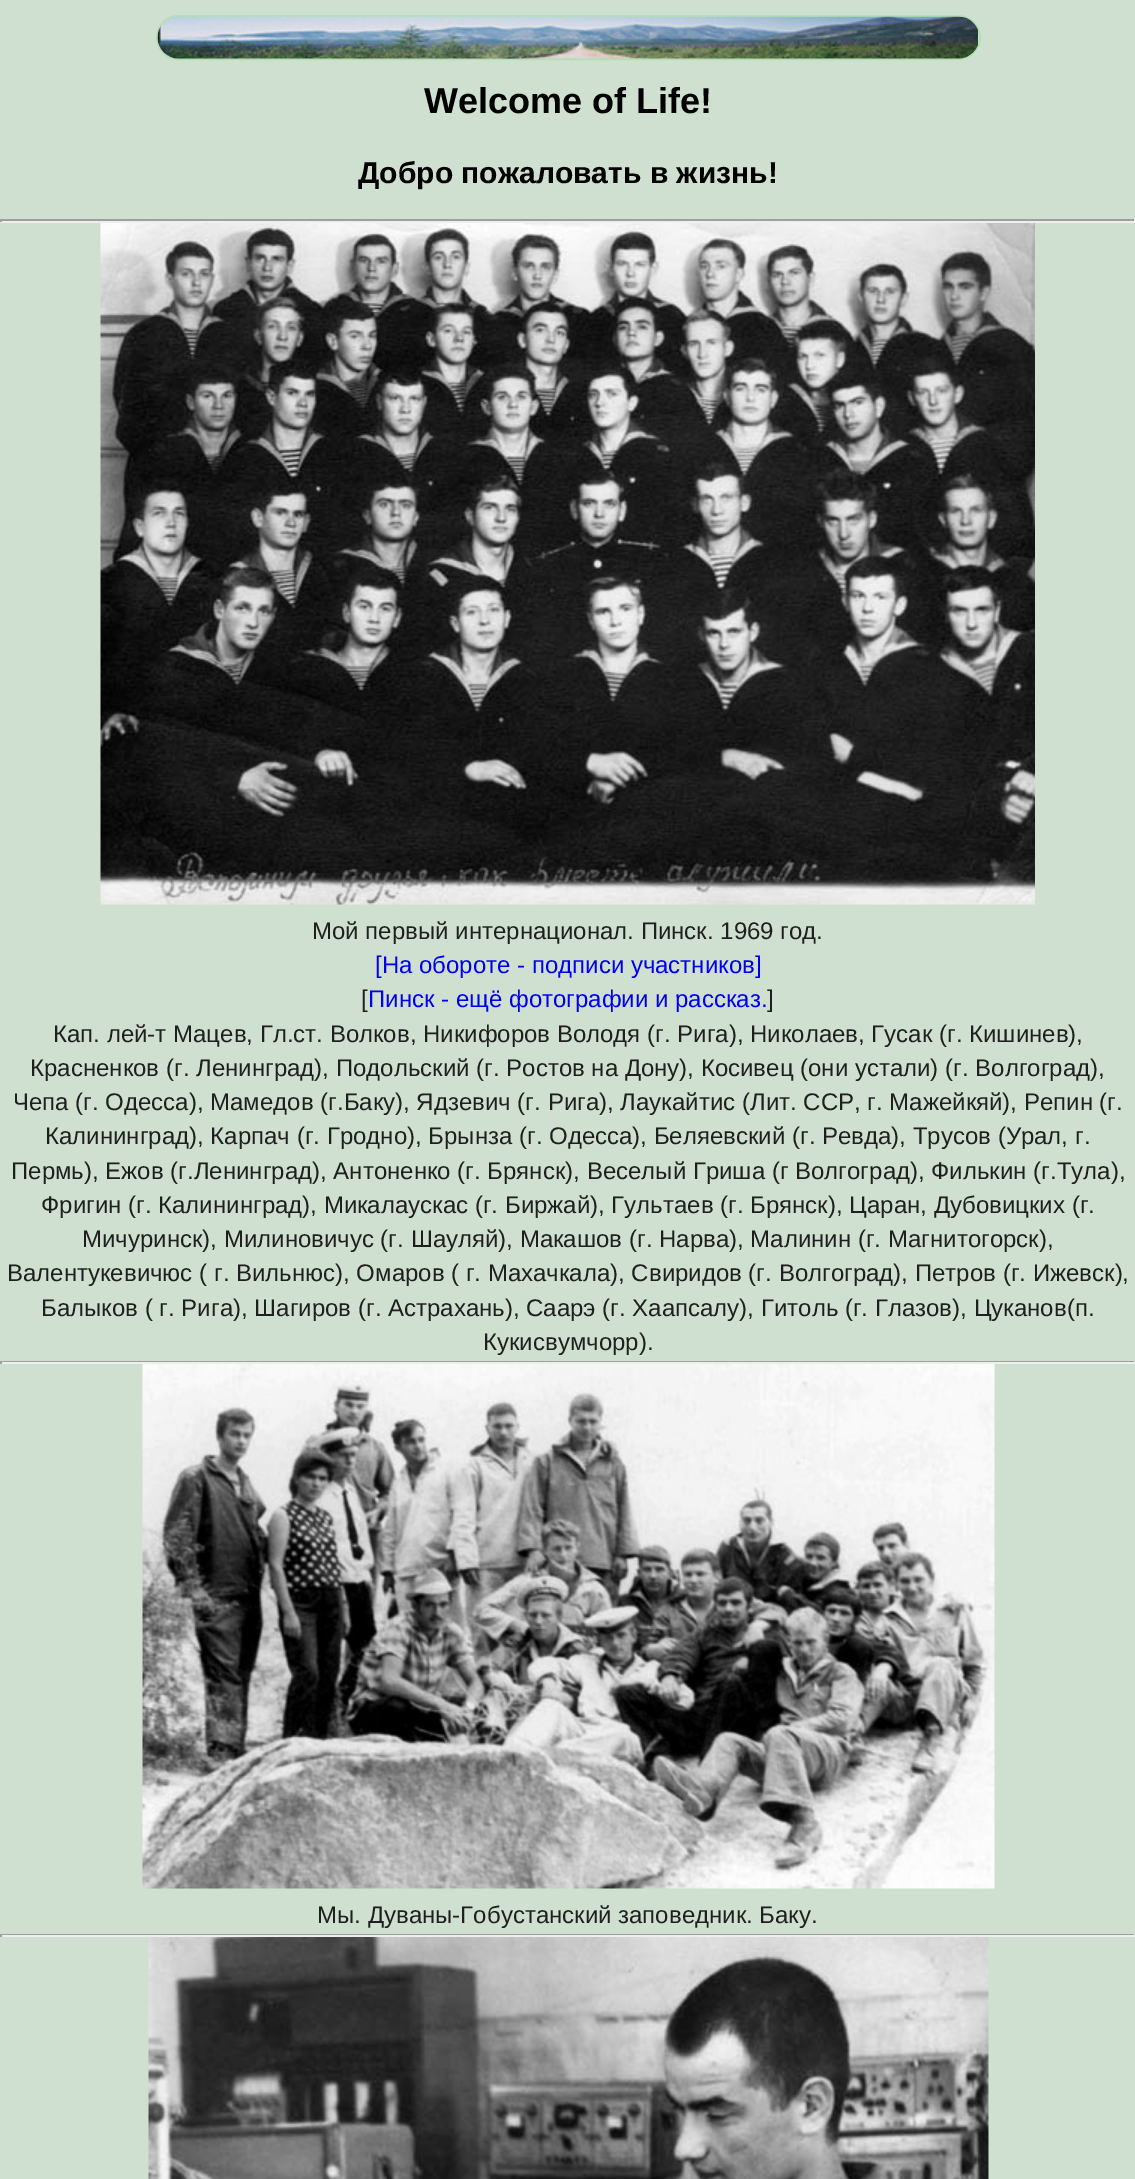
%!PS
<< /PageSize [1135 2179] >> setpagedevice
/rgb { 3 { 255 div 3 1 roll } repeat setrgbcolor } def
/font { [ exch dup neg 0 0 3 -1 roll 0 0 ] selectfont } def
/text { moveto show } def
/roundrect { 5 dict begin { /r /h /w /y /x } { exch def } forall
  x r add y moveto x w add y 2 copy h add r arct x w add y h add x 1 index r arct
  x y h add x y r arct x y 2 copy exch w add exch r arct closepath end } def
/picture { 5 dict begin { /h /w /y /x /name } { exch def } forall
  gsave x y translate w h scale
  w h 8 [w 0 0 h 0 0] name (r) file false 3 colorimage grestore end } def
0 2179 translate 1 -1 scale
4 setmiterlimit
208 224 208 rgb
0 0 1135 2179 rectfill
177 224 177 rgb
2 setlinewidth
157 16 823 43 21.5 roundrect stroke
(img_01.rgb) 157 16 821 43 picture
159 159 159 rgb
0 219 1135 2 rectfill
238 238 238 rgb
1134 219 1 3 rectfill
0 221 1135 2 rectfill
159 159 159 rgb
0 219 2 3 rectfill
(img_02.rgb) 100 223 935 682 picture
0 1361 1135 1 rectfill
238 238 238 rgb
1134 1361 1 3 rectfill
0 1362 1135 2 rectfill
159 159 159 rgb
0 1361 2 3 rectfill
(img_03.rgb) 142 1364 853 525 picture
0 1934 1135 1 rectfill
238 238 238 rgb
1134 1934 1 3 rectfill
0 1935 1135 2 rectfill
159 159 159 rgb
0 1934 2 3 rectfill
(img_04.rgb) 148 1937 841 242 picture
/LiberationSans-Bold 36 font
0 0 0 rgb
(Welcome of Life!) 424 113 text
/LiberationSans-Bold 30 font
(Добро пожаловать в жизнь!) 358 183 text
/LiberationSans-Regular 24 font
31 31 31 rgb
(Мой первый интернационал. Пинск. 1969 год.) 312 939 text
0 0 238 rgb
([На обороте - подписи участников]) 375 973 text
31 31 31 rgb
([) 361 1007 text
0 0 238 rgb
(Пинск - ещё фотографии и рассказ.) 368 1007 text
31 31 31 rgb
(]) 767 1007 text
(Кап. лей-т Мацев, Гл.ст. Волков, Никифоров Володя \(г. Рига\), Николаев, Гусак \(г. Кишинев\),) 53 1042 text
(Красненков \(г. Ленинград\), Подольский \(г. Ростов на Дону\), Косивец \(они устали\) \(г. Волгоград\),) 30 1076 text
(Чепа \(г. Одесса\), Мамедов \(г.Баку\), Ядзевич \(г. Рига\), Лаукайтис \(Лит. ССР, г. Мажейкяй\), Репин \(г.) 13 1110 text
(Калининград\), Карпач \(г. Гродно\), Брынза \(г. Одесса\), Беляевский \(г. Ревда\), Трусов \(Урал, г.) 45 1144 text
(Пермь\), Ежов \(г.Ленинград\), Антоненко \(г. Брянск\), Веселый Гриша \(г Волгоград\), Филькин \(г.Тула\),) 11 1179 text
(Фригин \(г. Калининград\), Микалаускас \(г. Биржай\), Гультаев \(г. Брянск\), Царан, Дубовицких \(г.) 41 1213 text
(Мичуринск\), Милиновичус \(г. Шауляй\), Макашов \(г. Нарва\), Малинин \(г. Магнитогорск\),) 82 1247 text
(Валентукевичюс \( г. Вильнюс\), Омаров \( г. Махачкала\), Свиридов \(г. Волгоград\), Петров \(г. Ижевск\),) 7 1281 text
(Балыков \( г. Рига\), Шагиров \(г. Астрахань\), Саарэ \(г. Хаапсалу\), Гитоль \(г. Глазов\), Цуканов\(п.) 41 1316 text
(Кукисвумчорр\).) 483 1350 text
(Мы. Дуваны-Гобустанский заповедник. Баку.) 317 1923 text
showpage
